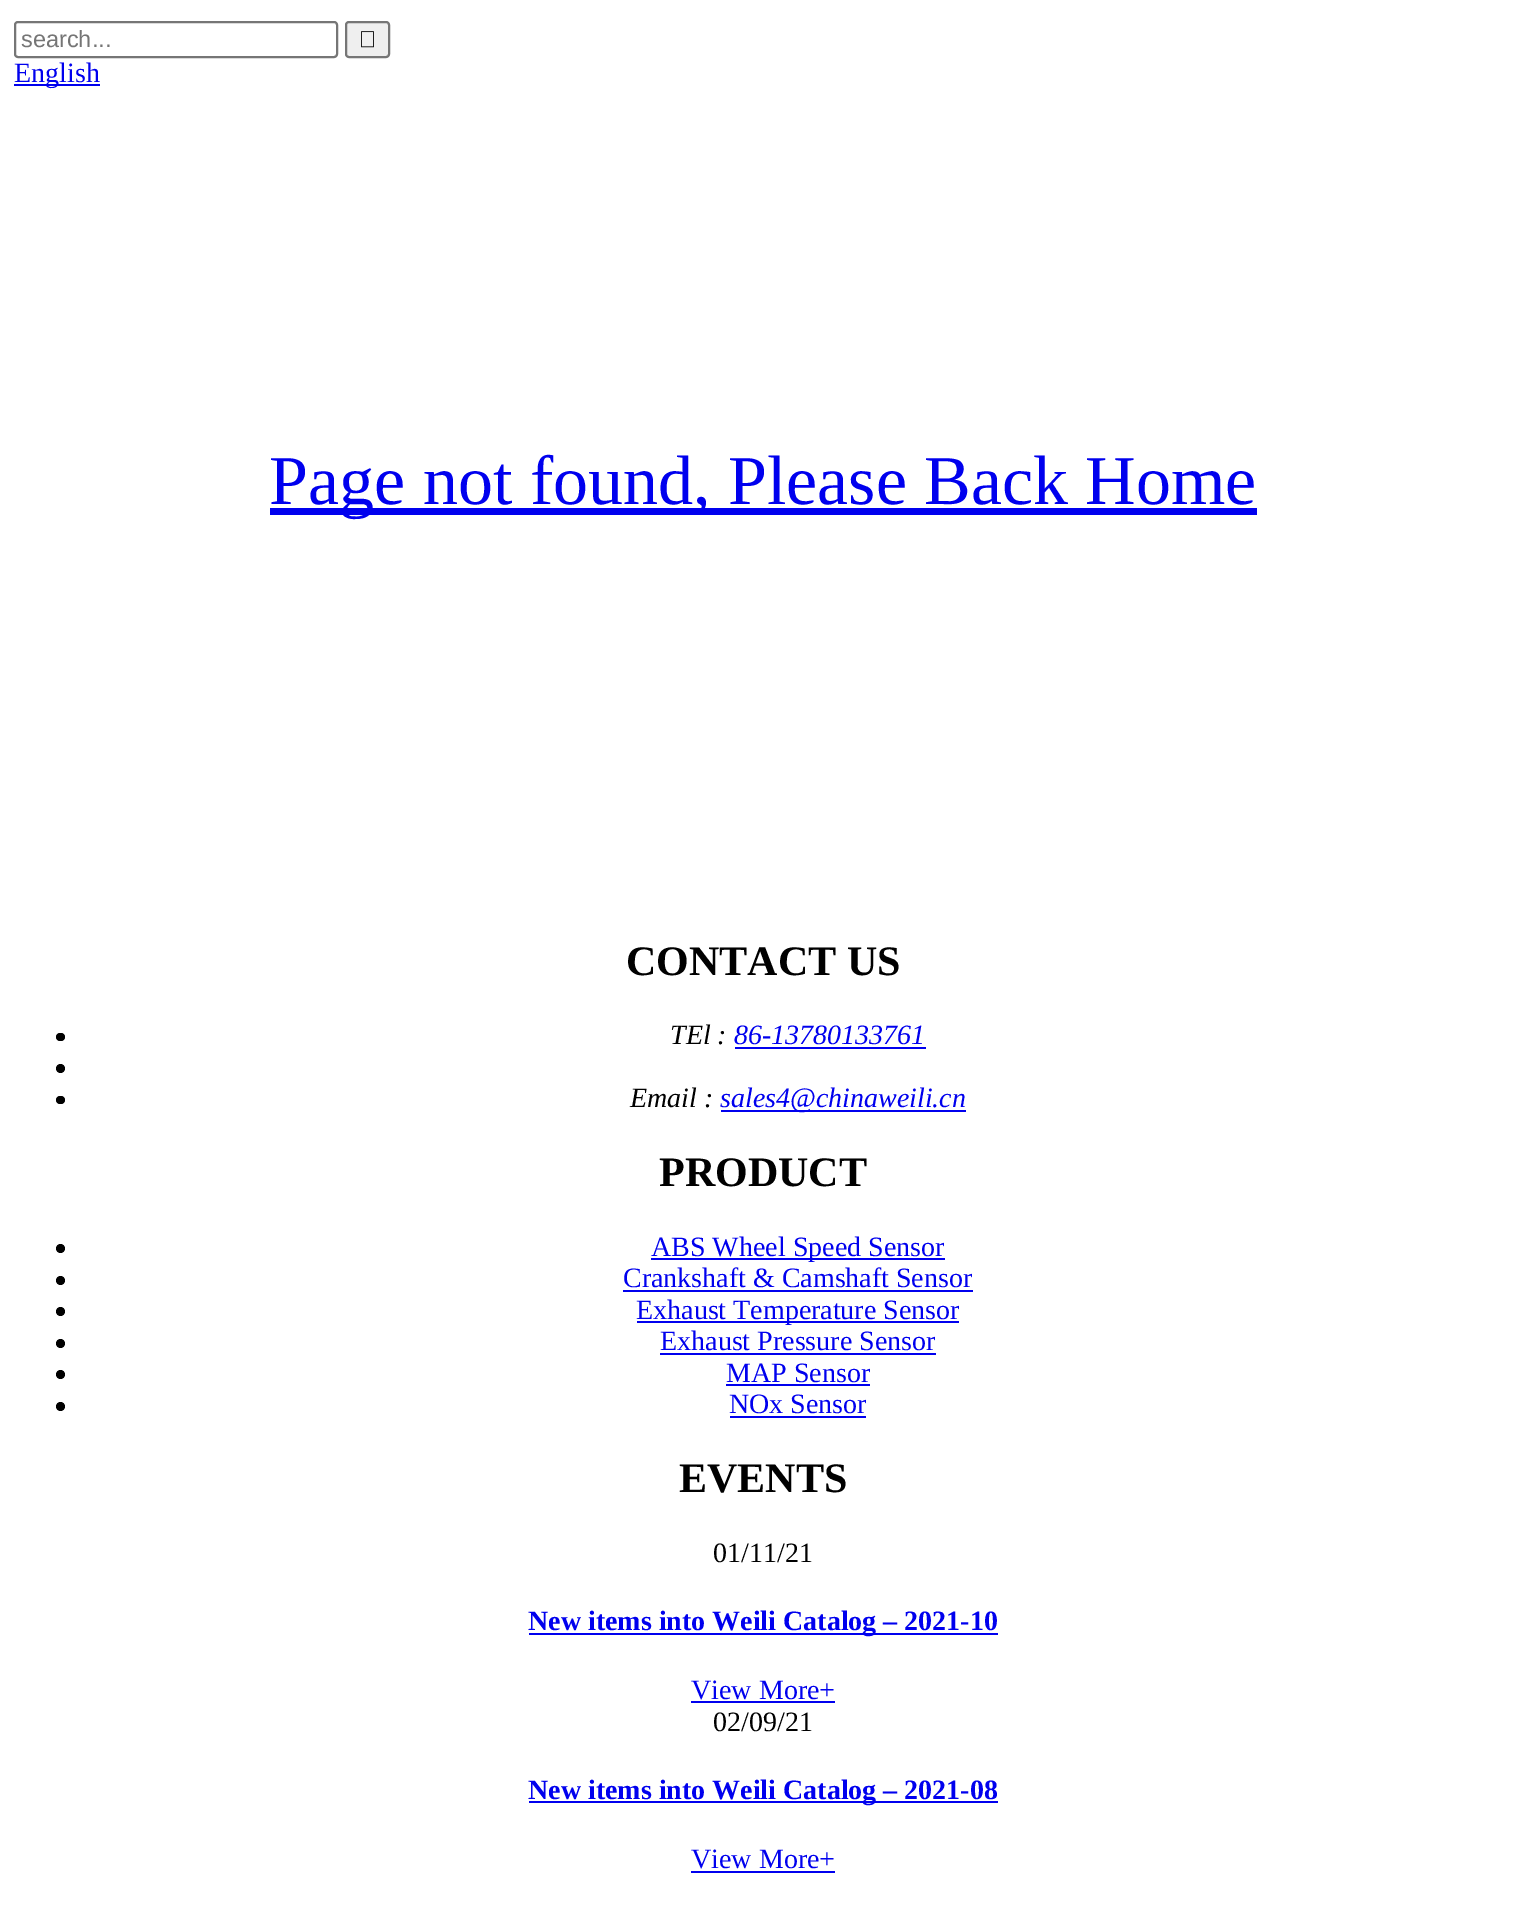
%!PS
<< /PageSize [1526 1932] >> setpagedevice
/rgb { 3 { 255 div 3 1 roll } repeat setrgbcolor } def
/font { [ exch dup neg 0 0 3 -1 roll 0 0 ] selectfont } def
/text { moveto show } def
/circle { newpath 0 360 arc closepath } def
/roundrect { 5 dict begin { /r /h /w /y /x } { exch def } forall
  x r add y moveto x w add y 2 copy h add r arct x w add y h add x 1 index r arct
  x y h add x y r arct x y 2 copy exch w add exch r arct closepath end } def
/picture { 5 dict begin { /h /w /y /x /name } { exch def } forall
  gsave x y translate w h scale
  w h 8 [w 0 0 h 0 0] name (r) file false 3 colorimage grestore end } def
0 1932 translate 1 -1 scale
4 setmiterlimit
255 255 255 rgb
0 0 1526 1932 rectfill
118 118 118 rgb
2 setlinewidth
15 22 322 35 3 roundrect stroke
239 239 239 rgb
346 22 43 35 3 roundrect gsave fill grestore
118 118 118 rgb
stroke
(img_01.rgb) 361 31 13 17 picture
0 0 238 rgb
14 84 86 2 rectfill
270 508 987 7 rectfill
0 0 0 rgb
56 1033 9 8 4 roundrect fill
0 0 238 rgb
735 1047 191 2 rectfill
0 0 0 rgb
60.5 1068.5 4.5 circle fill
56 1096 9 8 4 roundrect fill
0 0 238 rgb
721 1110 245 2 rectfill
0 0 0 rgb
60.5 1248.5 4.5 circle fill
0 0 238 rgb
651 1258 294 2 rectfill
0 0 0 rgb
60.5 1280.5 4.5 circle fill
0 0 238 rgb
623 1290 350 2 rectfill
0 0 0 rgb
60.5 1311.5 4.5 circle fill
0 0 238 rgb
637 1321 322 2 rectfill
0 0 0 rgb
60.5 1343.5 4.5 circle fill
0 0 238 rgb
660 1353 276 2 rectfill
0 0 0 rgb
60.5 1374.5 4.5 circle fill
0 0 238 rgb
726 1384 144 2 rectfill
0 0 0 rgb
60.5 1406.5 4.5 circle fill
0 0 238 rgb
730 1416 136 2 rectfill
529 1633 469 2 rectfill
691 1701 144 2 rectfill
529 1801 469 2 rectfill
691 1871 144 2 rectfill
/LiberationSans-Regular 23.5 font
117 117 117 rgb
(search...) 21 47 text
/LiberationSerif-Regular 28 font
0 0 238 rgb
(English) 14 82 text
/LiberationSerif-Regular 70 font
(Page not found, Please Back Home) 269 504 text
/LiberationSerif-Bold 42 font
0 0 0 rgb
(CONTACT US) 626 975 text
/LiberationSerif-Italic 28 font
(TEl :) 670 1044 text
0 0 238 rgb
(86-13780133761) 734 1044 text
0 0 0 rgb
(Email :) 630 1107 text
0 0 238 rgb
(sales4@chinaweili.cn) 720 1107 text
/LiberationSerif-Bold 42 font
0 0 0 rgb
(PRODUCT) 659 1186 text
/LiberationSerif-Regular 28 font
0 0 238 rgb
(ABS Wheel Speed Sensor) 651 1256 text
(Crankshaft & Camshaft Sensor) 623 1287 text
(Exhaust Temperature Sensor) 636 1319 text
(Exhaust Pressure Sensor) 660 1350 text
(MAP Sensor) 726 1382 text
(NOx Sensor) 729 1413 text
/LiberationSerif-Bold 42 font
0 0 0 rgb
(EVENTS) 679 1492 text
/LiberationSerif-Regular 28 font
(01/11/21) 713 1562 text
/LiberationSerif-Bold 28 font
0 0 238 rgb
(New items into Weili Catalog – 2021-10) 528 1630 text
/LiberationSerif-Regular 28 font
(View More+) 691 1699 text
0 0 0 rgb
(02/09/21) 713 1731 text
/LiberationSerif-Bold 28 font
0 0 238 rgb
(New items into Weili Catalog – 2021-08) 528 1799 text
/LiberationSerif-Regular 28 font
(View More+) 691 1868 text
showpage
